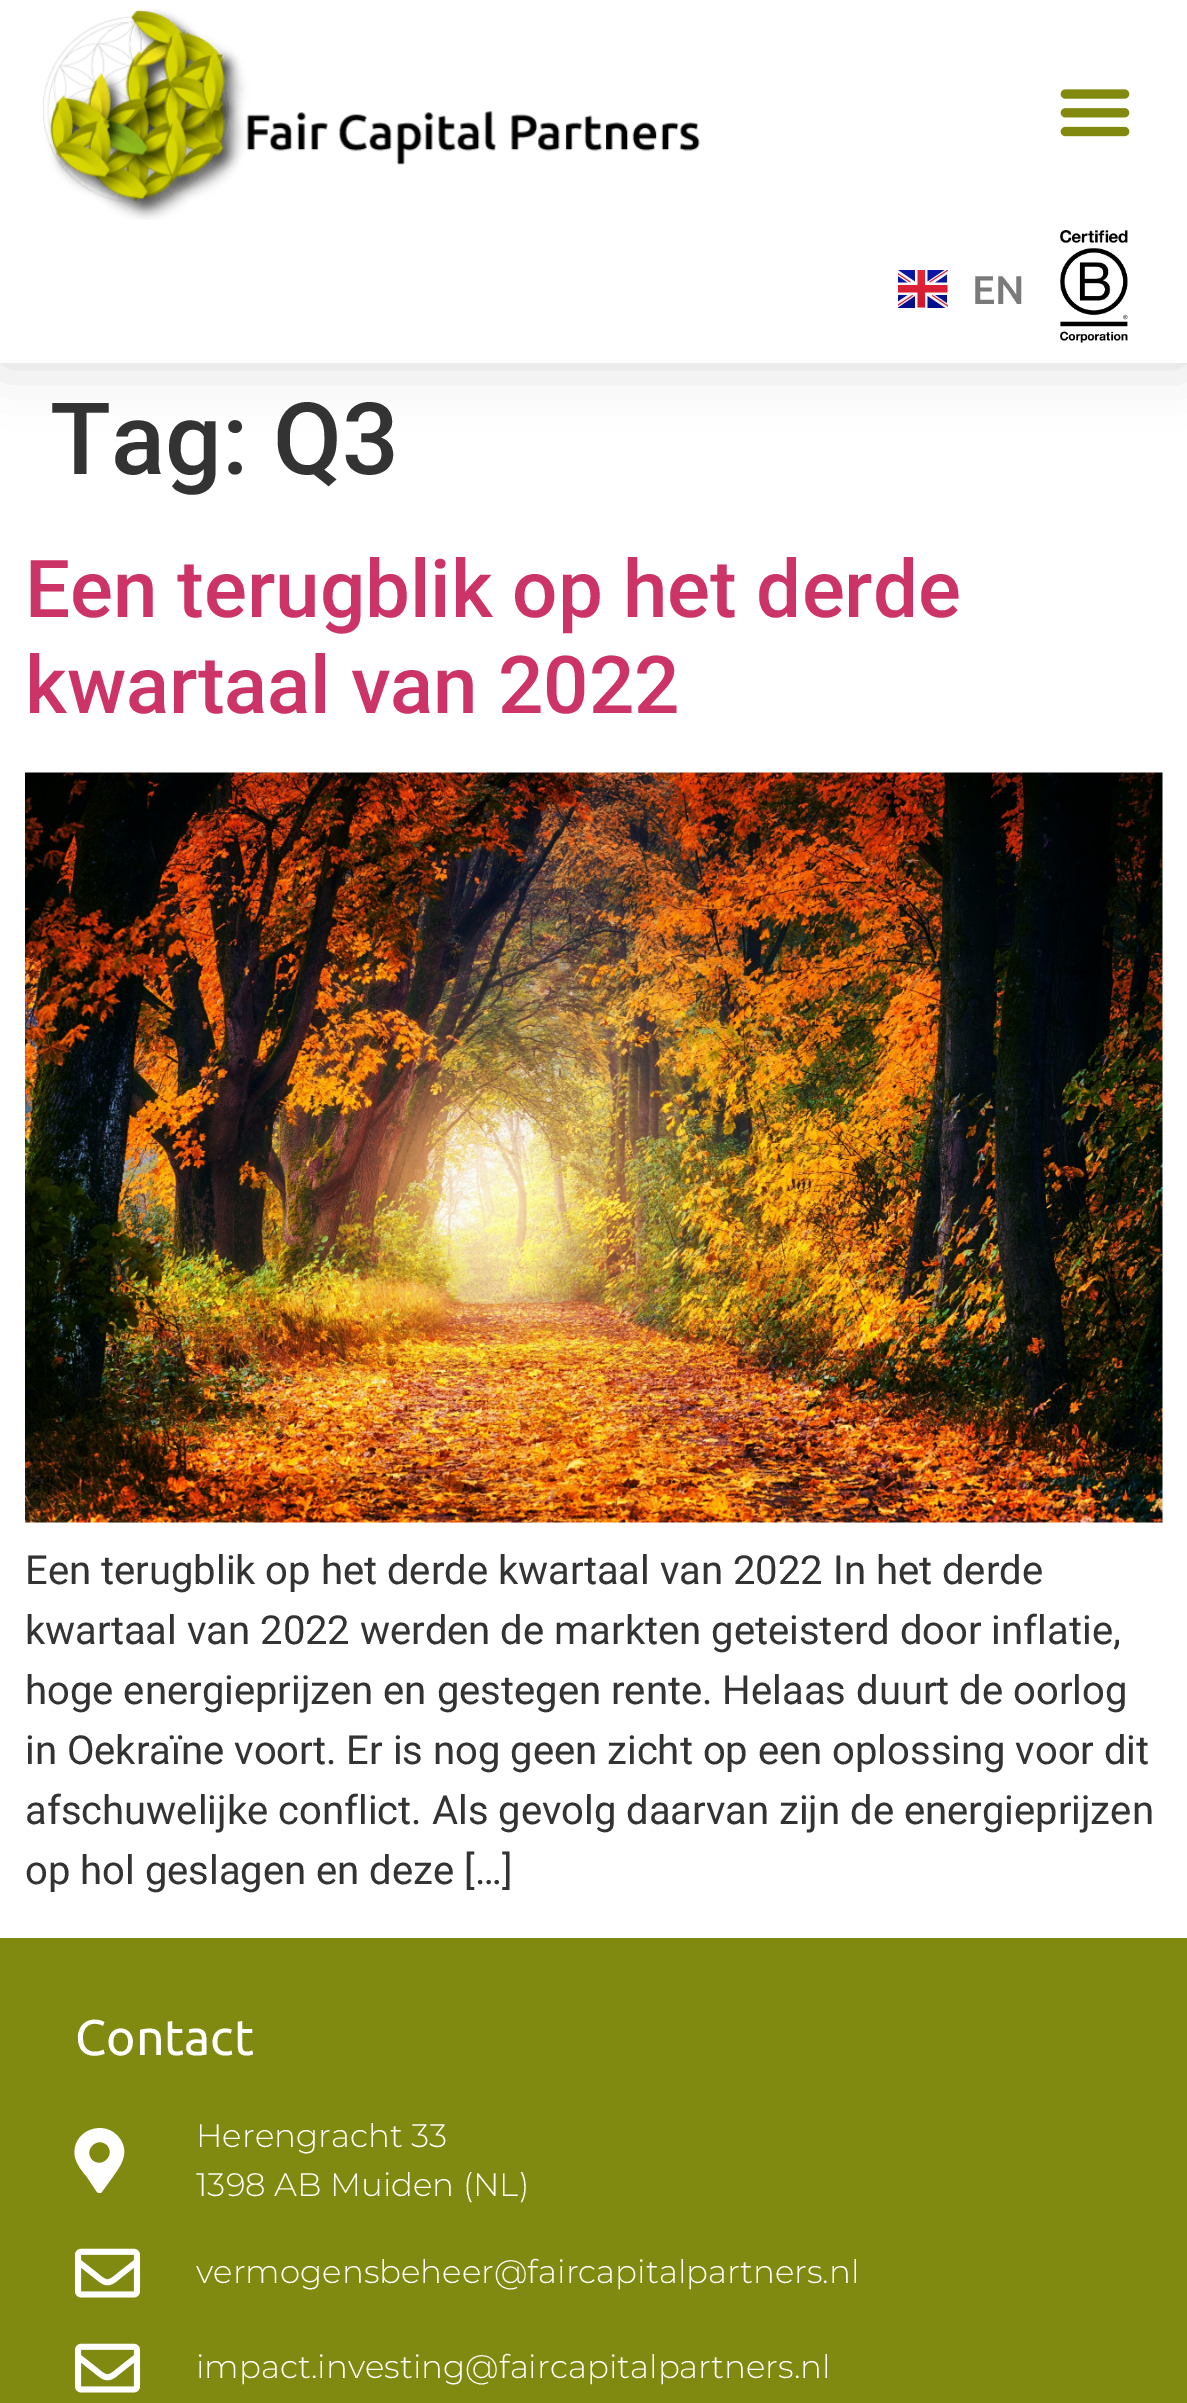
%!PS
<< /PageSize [1187 2403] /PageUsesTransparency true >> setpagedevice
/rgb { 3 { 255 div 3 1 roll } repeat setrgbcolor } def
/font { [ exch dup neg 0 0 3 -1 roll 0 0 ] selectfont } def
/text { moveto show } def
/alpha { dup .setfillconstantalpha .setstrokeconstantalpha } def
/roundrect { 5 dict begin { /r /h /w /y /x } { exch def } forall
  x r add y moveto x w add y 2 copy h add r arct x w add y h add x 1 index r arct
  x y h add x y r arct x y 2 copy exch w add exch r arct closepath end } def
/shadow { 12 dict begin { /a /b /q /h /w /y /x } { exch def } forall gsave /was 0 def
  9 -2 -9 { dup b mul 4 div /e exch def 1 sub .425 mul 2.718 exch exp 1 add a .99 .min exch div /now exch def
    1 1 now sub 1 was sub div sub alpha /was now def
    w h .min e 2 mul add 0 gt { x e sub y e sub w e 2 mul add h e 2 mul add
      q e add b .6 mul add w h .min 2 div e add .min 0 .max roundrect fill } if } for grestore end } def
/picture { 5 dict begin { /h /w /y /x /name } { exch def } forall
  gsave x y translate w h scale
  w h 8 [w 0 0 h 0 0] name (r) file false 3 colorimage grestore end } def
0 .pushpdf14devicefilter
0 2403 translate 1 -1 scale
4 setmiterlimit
255 255 255 rgb
0 0 1187 2403 rectfill
0 0 0 rgb
0 0 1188 363 0 30 0.15 shadow
255 255 255 rgb
0 0 1187 363 rectfill
(img_01.rgb) 43 9 657 211 picture
(img_02.rgb) 1060 89 70 48 picture
(img_03.rgb) 898 270 50 38 picture
(img_04.rgb) 1060 230 68 113 picture
(img_05.rgb) 25 772 1138 751 picture
129 138 16 rgb
0 1938 1187 465 rectfill
255 255 255 rgb
97 2192 moveto -10 -15 rlineto -5 -6 -10 -12 -12 -20 rcurveto -5 -26 30 -40 45 -18 rcurveto 11 16 -2 30 -11 43 rcurveto -8 11 rlineto -2 0 -3 0 -4 -1 rcurveto closepath 92 2160 moveto 10 9 24 -5 15 -15 rcurveto -10 -9 -24 5 -15 15 rcurveto closepath fill
(img_06.rgb) 75 2248 65 50 picture
(img_06.rgb) 75 2343 65 50 picture
/Ubuntu-Medium 40 font
122 122 122 rgb
(EN) 972 304 text
/Roboto-Medium 100 font
51 51 51 rgb
(Tag: Q3) 50 474 text
/Roboto-Medium 80 font
204 51 102 rgb
(Een terugblik op het derde) 25 617 text
(kwartaal van 2022) 25 713 text
/Roboto-Regular 40 font
51 51 51 rgb
(Een terugblik op het derde kwartaal van 2022 In het derde) 25 1584 text
(kwartaal van 2022 werden de markten geteisterd door inflatie,) 25 1644 text
(hoge energieprijzen en gestegen rente. Helaas duurt de oorlog) 25 1704 text
(in Oekraïne voort. Er is nog geen zicht op een oplossing voor dit) 25 1764 text
(afschuwelijke conflict. Als gevolg daarvan zijn de energieprijzen) 25 1824 text
(op hol geslagen en deze […]) 25 1884 text
/Ubuntu-Regular 50 font
255 255 255 rgb
(Contact) 75 2055 text
/Montserrat-Light 32.5 font
(Herengracht 33) 196 2147 text
(1398 AB Muiden \(NL\)) 196 2196 text
(vermogensbeheer@faircapitalpartners.nl) 196 2283 text
(impact.investing@faircapitalpartners.nl) 196 2378 text
.poppdf14devicefilter showpage
